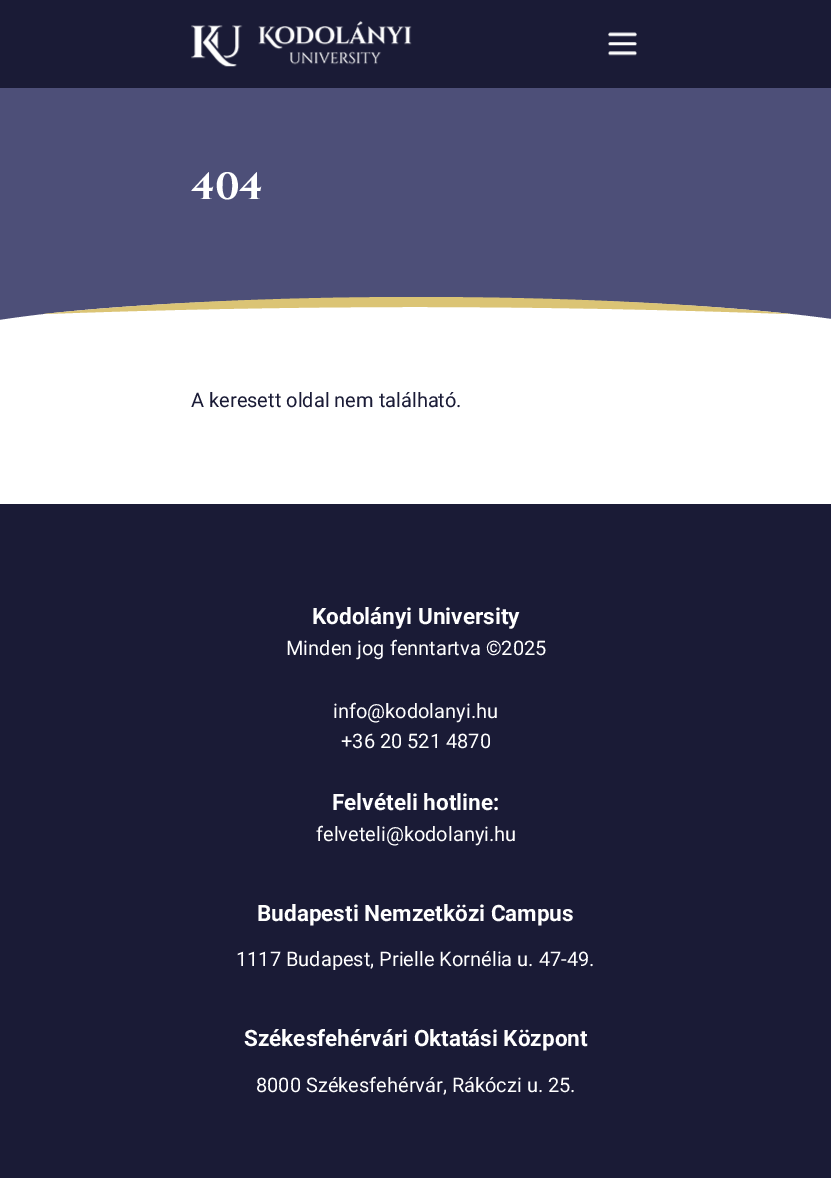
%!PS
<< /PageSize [831 1178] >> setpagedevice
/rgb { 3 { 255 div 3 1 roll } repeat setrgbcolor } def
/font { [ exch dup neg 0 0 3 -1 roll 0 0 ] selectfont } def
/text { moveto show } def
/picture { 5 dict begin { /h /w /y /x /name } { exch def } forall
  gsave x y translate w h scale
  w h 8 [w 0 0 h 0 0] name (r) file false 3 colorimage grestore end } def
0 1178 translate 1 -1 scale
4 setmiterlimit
255 255 255 rgb
0 0 831 1178 rectfill
26 27 54 rgb
0 0 831 88 rectfill
(img_01.rgb) 191 21 221 46 picture
(img_02.rgb) 608 32 29 24 picture
77 79 120 rgb
0 88 831 232 rectfill
255 255 255 rgb
562 300 moveto -292 0 rlineto -111 3 -206 10 -270 20 rcurveto 0 29 rlineto 831 0 rlineto 0 -30 rlineto -64 -9 -158 -16 -269 -19 rcurveto closepath fill
219 196 117 rgb
44 314 moveto 109 -4 236 -7 371 -7 rcurveto 136 0 264 3 375 7 rcurveto -92 -10 -226 -17 -374 -17 rcurveto -147 0 -280 7 -372 17 rcurveto closepath fill
26 27 54 rgb
0 504 831 674 rectfill
/Cinzel-Bold 38 font
255 255 255 rgb
(404) 191 199 text
/Roboto-Regular 20 font
26 27 54 rgb
(A keresett oldal nem található.) 191 407 text
/Roboto-Bold 22.5 font
255 255 255 rgb
(Kodolányi University) 312 624 text
/Roboto-Regular 20 font
(Minden jog fenntartva ©2025) 286 655 text
(info@kodolanyi.hu) 333 718 text
(+36 20 521 4870) 341 748 text
/Roboto-Bold 22.5 font
(Felvételi hotline:) 332 810 text
/Roboto-Regular 20 font
(felveteli@kodolanyi.hu) 316 841 text
/Roboto-Bold 22.5 font
(Budapesti Nemzetközi Campus) 257 921 text
/Roboto-Regular 20 font
(1117 Budapest, Prielle Kornélia u. 47-49.) 236 966 text
/Roboto-Bold 22.5 font
(Székesfehérvári Oktatási Központ) 244 1046 text
/Roboto-Regular 20 font
(8000 Székesfehérvár, Rákóczi u. 25.) 256 1092 text
showpage
